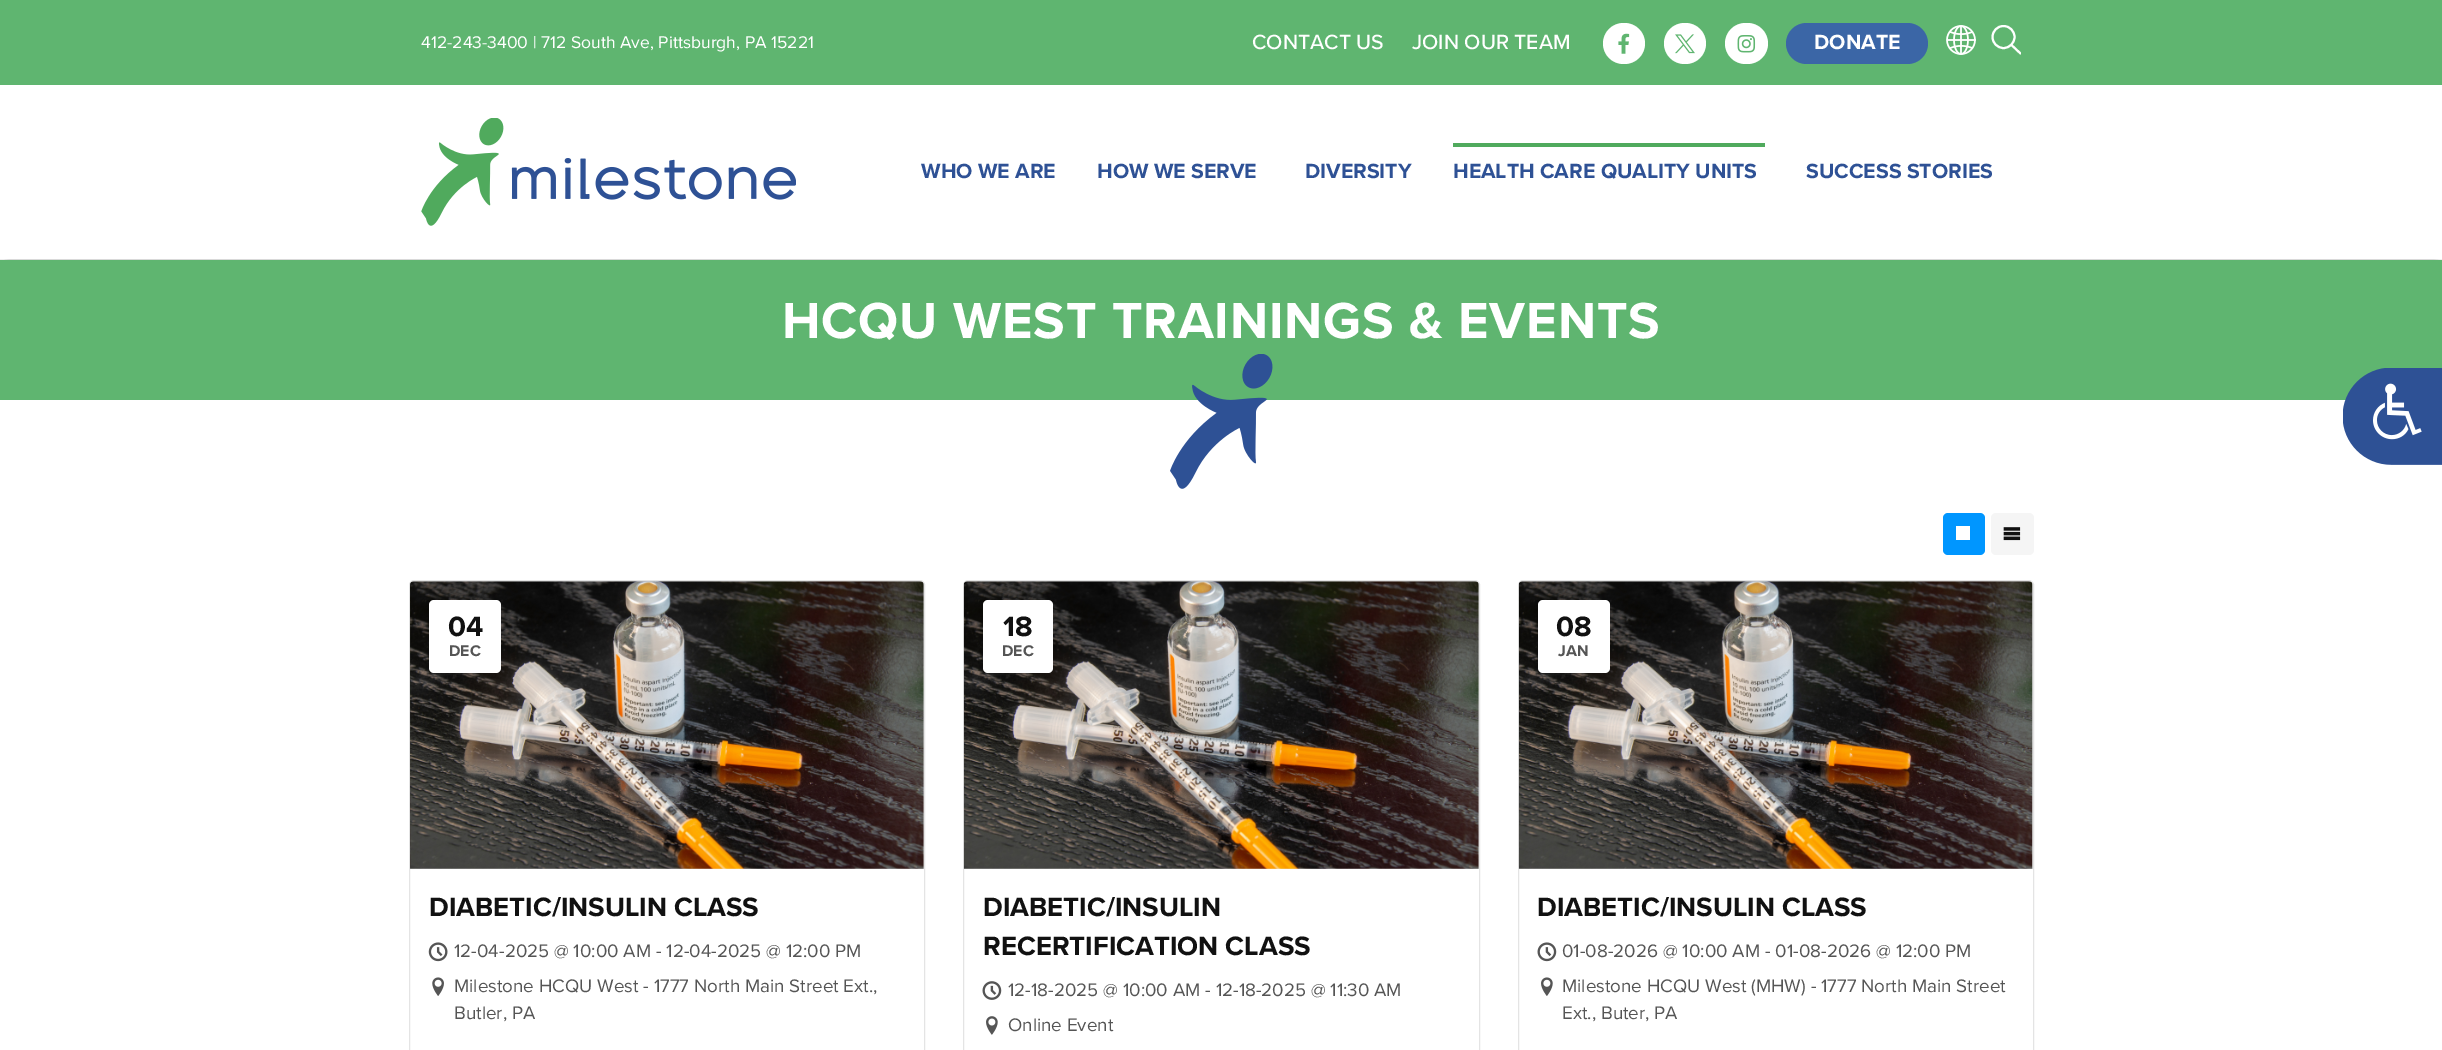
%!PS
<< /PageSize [2442 1050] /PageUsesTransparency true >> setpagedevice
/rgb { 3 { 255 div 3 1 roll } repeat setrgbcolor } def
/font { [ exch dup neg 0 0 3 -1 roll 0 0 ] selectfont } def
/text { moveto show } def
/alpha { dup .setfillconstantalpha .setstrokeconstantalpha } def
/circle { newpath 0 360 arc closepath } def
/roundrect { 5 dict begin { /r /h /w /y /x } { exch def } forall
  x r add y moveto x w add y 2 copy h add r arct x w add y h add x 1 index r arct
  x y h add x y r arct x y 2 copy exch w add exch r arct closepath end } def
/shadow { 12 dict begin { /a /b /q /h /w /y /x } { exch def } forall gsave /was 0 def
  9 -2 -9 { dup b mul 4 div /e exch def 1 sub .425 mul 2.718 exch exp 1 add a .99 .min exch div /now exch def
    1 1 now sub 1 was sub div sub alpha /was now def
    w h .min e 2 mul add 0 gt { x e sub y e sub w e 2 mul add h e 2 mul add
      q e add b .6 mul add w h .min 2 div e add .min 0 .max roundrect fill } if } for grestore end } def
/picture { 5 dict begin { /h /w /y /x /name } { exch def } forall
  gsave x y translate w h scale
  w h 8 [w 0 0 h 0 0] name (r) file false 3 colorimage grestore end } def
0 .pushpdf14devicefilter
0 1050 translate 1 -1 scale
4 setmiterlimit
255 255 255 rgb
0 0 2442 1050 rectfill
0 0 0 rgb
0 55 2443 174 0 25 1 shadow
95 181 112 rgb
0 0 2442 85 rectfill
255 255 255 rgb
1603 23 42 41 20.5 roundrect fill
(img_01.rgb) 1618 33 12 21 picture
1664 23 42 41 20.5 roundrect fill
(img_02.rgb) 1675 34 20 20 picture
1725 23 43 41 20.5 roundrect fill
(img_03.rgb) 1737 35 19 18 picture
59 102 166 rgb
1786 23 142 41 20.5 roundrect fill
(img_04.rgb) 1946 25 30 30 picture
255 255 255 rgb
2 setlinewidth
2003.5 37 11 circle stroke
gsave
1991 25 30 30 rectclip
1 setlinecap
1 setlinejoin
2011.5 45 moveto 9 8.5 rlineto stroke
grestore
0 85 2442 174 rectfill
(img_05.rgb) 421 118 375 108 picture
80 170 93 rgb
1453 143 312 4 rectfill
95 181 112 rgb
0 260 2442 140 rectfill
(img_06.rgb) 1170 354 103 135 picture
0 150 255 rgb
1943 513 42 42 5 roundrect fill
255 255 255 rgb
1956 526 14 14 rectfill
245 245 245 rgb
1991 513 43 42 5 roundrect fill
(img_07.rgb) 2003 527 18 14 picture
228 228 228 rgb
1 setlinewidth
409.5 580.5 515 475 4.5 roundrect stroke
414 581 moveto 506 0 rlineto 2 0 4 2 4 4 rcurveto 0 284 rlineto -514 0 rlineto 0 -284 rlineto 0 -2 2 -4 4 -4 rcurveto closepath fill
(img_08.rgb) 410 581 514 288 picture
0 0 0 rgb
435 604 73 72 5 9.5 0.2 shadow
255 255 255 rgb
429 600 72 73 5 roundrect fill
(img_09.rgb) 428 942 20 20 picture
(img_10.rgb) 432 977 12 19 picture
228 228 228 rgb
963.5 580.5 516 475 4.5 roundrect stroke
968 581 moveto 507 0 rlineto 2 0 4 2 4 4 rcurveto 0 284 rlineto -515 0 rlineto 0 -284 rlineto 0 -2 2 -4 4 -4 rcurveto closepath fill
(img_11.rgb) 963 581 516 288 picture
0 0 0 rgb
989 604 70 72 5 9.5 0.2 shadow
255 255 255 rgb
983 600 70 73 5 roundrect fill
(img_12.rgb) 982 981 20 19 picture
(img_13.rgb) 986 1016 12 19 picture
228 228 228 rgb
1518.5 580.5 515 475 4.5 roundrect stroke
1523 581 moveto 506 0 rlineto 2 0 4 2 4 4 rcurveto 0 284 rlineto -514 0 rlineto 0 -284 rlineto 0 -2 2 -4 4 -4 rcurveto closepath fill
(img_14.rgb) 1518 581 515 288 picture
0 0 0 rgb
1544 604 72 72 5 9.5 0.2 shadow
255 255 255 rgb
1538 600 72 73 5 roundrect fill
(img_15.rgb) 1537 942 20 20 picture
(img_16.rgb) 1541 977 12 19 picture
(img_17.rgb) 2343 368 99 97 picture
/ProximaNova-Regular 17.5 font
(412-243-3400 | 712 South Ave, Pittsburgh, PA 15221) 421 48 text
/ProximaNova-Medium 21.25 font
(CONTACT US) 1252 49 text
(JOIN OUR TEAM) 1412 49 text
/ProximaNova-Bold 21.25 font
(DONATE) 1814 49 text
46 81 149 rgb
(WHO WE ARE) 921 178 text
(HOW WE SERVE) 1097 178 text
(DIVERSITY) 1305 178 text
(HEALTH CARE QUALITY UNITS) 1453 178 text
(SUCCESS STORIES) 1806 178 text
/ProximaNova-Bold 52.5 font
255 255 255 rgb
782 338 moveto 0.9 0 (HCQU WEST TRAININGS & EVENTS) ashow
/ProximaNova-Bold 29 font
17 17 17 rgb
(04) 448 636 text
/ProximaNova-Bold 16 font
85 85 85 rgb
(DEC) 449 656 text
/ProximaNova-Bold 27.5 font
17 17 17 rgb
(DIABETIC/INSULIN CLASS) 429 916 text
/ProximaNova-Regular 18.75 font
85 85 85 rgb
(12-04-2025 @ 10:00 AM - 12-04-2025 @ 12:00 PM) 454 957 text
(Milestone HCQU West - 1777 North Main Street Ext.,) 454 992 text
(Butler, PA) 454 1019 text
/ProximaNova-Bold 29 font
17 17 17 rgb
(18) 1003 636 text
/ProximaNova-Bold 16 font
85 85 85 rgb
(DEC) 1002 656 text
/ProximaNova-Bold 27.5 font
17 17 17 rgb
(DIABETIC/INSULIN) 983 916 text
(RECERTIFICATION CLASS) 983 955 text
/ProximaNova-Regular 18.75 font
85 85 85 rgb
(12-18-2025 @ 10:00 AM - 12-18-2025 @ 11:30 AM) 1008 996 text
(Online Event) 1008 1031 text
/ProximaNova-Bold 29 font
17 17 17 rgb
(08) 1556 636 text
/ProximaNova-Bold 16 font
85 85 85 rgb
(JAN) 1558 656 text
/ProximaNova-Bold 27.5 font
17 17 17 rgb
(DIABETIC/INSULIN CLASS) 1537 916 text
/ProximaNova-Regular 18.75 font
85 85 85 rgb
(01-08-2026 @ 10:00 AM - 01-08-2026 @ 12:00 PM) 1562 957 text
(Milestone HCQU West \(MHW\) - 1777 North Main Street) 1562 992 text
(Ext., Buter, PA) 1562 1019 text
.poppdf14devicefilter showpage
